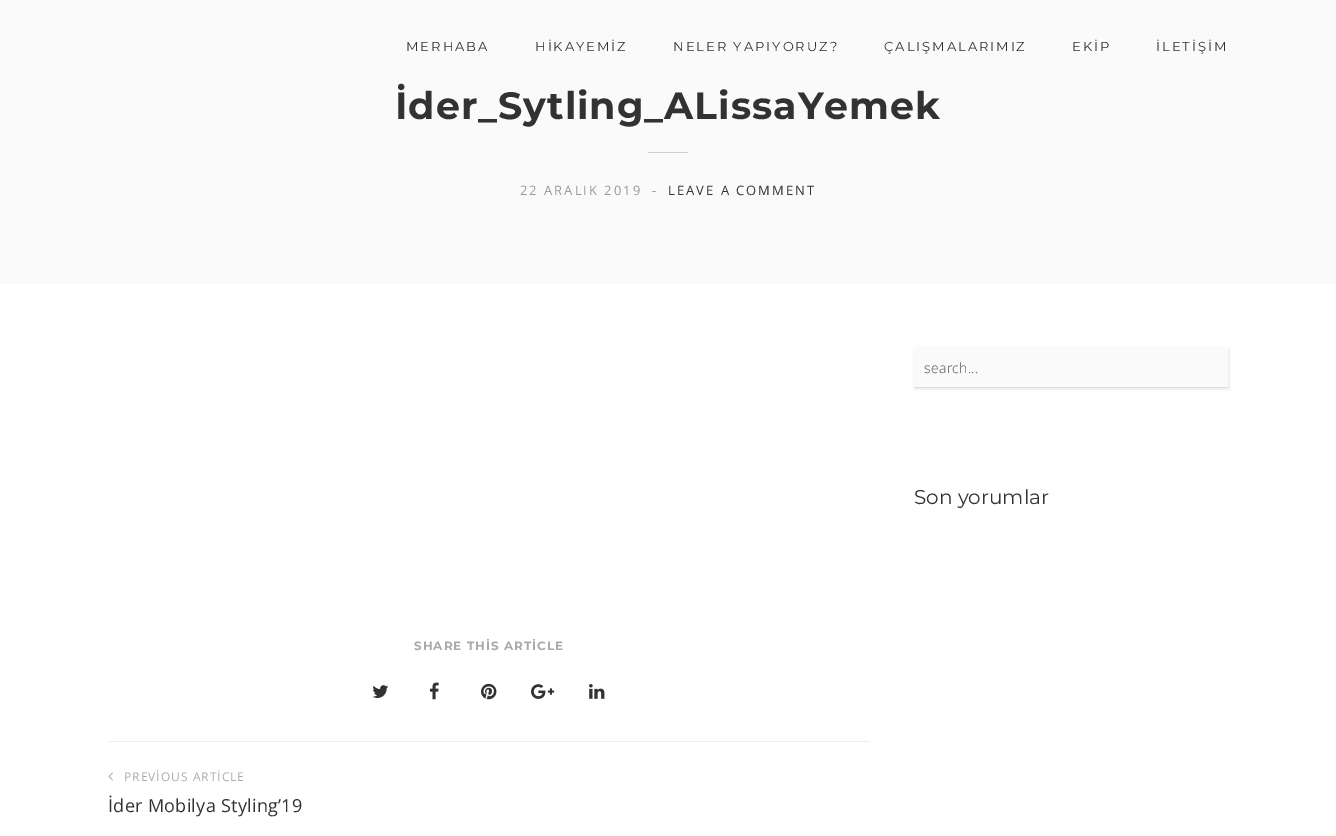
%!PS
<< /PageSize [1336 836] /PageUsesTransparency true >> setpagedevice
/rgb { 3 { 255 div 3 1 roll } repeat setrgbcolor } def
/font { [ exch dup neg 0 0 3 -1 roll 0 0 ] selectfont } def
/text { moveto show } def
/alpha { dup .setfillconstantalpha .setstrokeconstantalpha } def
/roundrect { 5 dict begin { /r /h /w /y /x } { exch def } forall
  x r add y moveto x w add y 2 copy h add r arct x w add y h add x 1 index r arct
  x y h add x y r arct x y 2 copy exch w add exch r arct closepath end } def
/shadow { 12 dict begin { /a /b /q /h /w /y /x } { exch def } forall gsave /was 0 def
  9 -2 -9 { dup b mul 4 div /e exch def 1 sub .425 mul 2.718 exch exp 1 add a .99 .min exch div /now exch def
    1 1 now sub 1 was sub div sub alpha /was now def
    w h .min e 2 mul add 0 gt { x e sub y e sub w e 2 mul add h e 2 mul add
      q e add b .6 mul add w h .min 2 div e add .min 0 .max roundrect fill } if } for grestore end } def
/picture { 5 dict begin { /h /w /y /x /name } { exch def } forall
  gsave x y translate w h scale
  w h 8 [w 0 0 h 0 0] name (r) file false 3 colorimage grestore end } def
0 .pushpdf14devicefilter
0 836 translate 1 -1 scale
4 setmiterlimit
255 255 255 rgb
0 0 1336 836 rectfill
250 250 250 rgb
0 0 1336 284 rectfill
204 204 204 rgb
648 152 40 1 rectfill
0 0 0 rgb
915 349 314 40 0 1.5 0.1 shadow
250 250 250 rgb
914 348 314 39 rectfill
221 221 221 rgb
914 387 314 1 rectfill
(img_01.rgb) 372 685 17 13 picture
(img_02.rgb) 429 682 10 18 picture
(img_03.rgb) 481 683 16 17 picture
(img_04.rgb) 531 684 24 15 picture
(img_05.rgb) 589 684 16 15 picture
239 239 239 rgb
108 741 762 1 rectfill
(img_06.rgb) 108 772 5 9 picture
/Montserrat-Regular 13 font
50 50 50 rgb
406 51 moveto 2 0 (MERHABA) ashow
535 51 moveto 2 0 (HİKAYEMİZ) ashow
673 51 moveto 2 0 (NELER YAPIYORUZ?) ashow
884 51 moveto 2 0 (ÇALIŞMALARIMIZ) ashow
1072 51 moveto 2 0 (EKİP) ashow
1156 51 moveto 2 0 (İLETİŞİM) ashow
/Montserrat-Bold 38 font
395 119 moveto 1 0 (İder_Sytling_ALissaYemek) ashow
/OpenSans-Regular 13 font
153 153 153 rgb
520 195 moveto 2 0 (22 ARALIK 2019) ashow
652 195 moveto 2 0 (-) ashow
50 50 50 rgb
668 195 moveto 2 0 (LEAVE A COMMENT) ashow
/OpenSans-Light 14 font
76 76 76 rgb
924 373 moveto 0.3 0 (search...) ashow
/Montserrat-Regular 20 font
50 50 50 rgb
(Son yorumlar) 914 504 text
/Montserrat-Bold 12 font
170 170 170 rgb
414 650 moveto 1 0 (SHARE THİS ARTİCLE) ashow
/OpenSans-Regular 12 font
124 781 moveto 1 0 (PREVİOUS ARTİCLE) ashow
/OpenSans-Regular 18 font
50 50 50 rgb
108 812 moveto 0.3 0 (İder Mobilya Styling’19) ashow
.poppdf14devicefilter showpage
